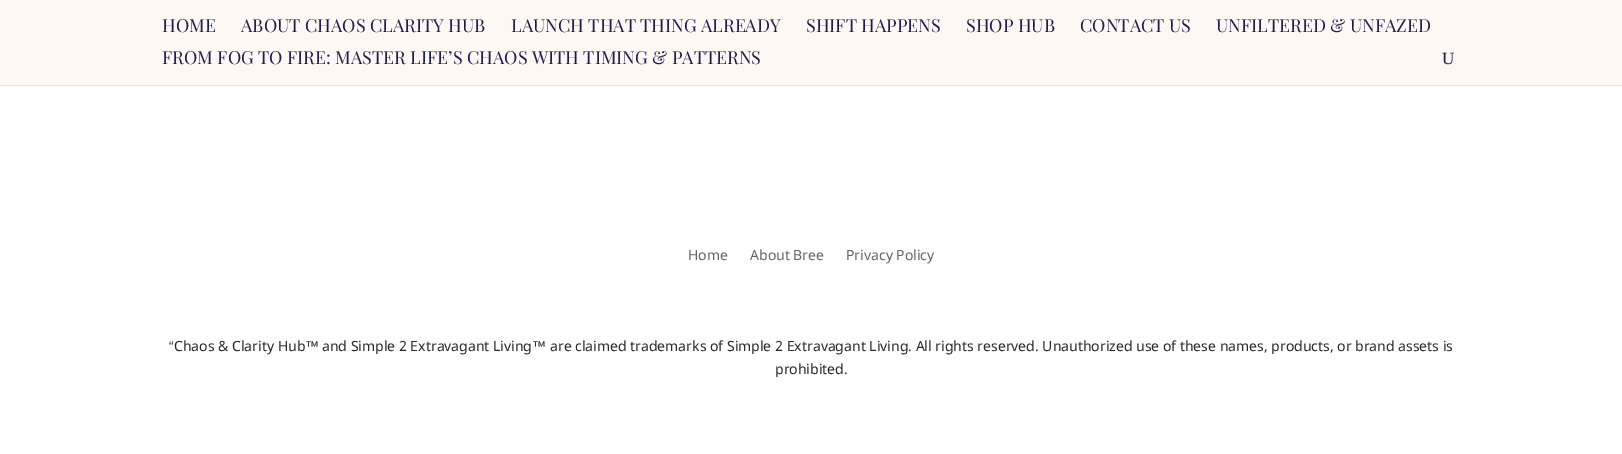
%!PS
<< /PageSize [1622 454] >> setpagedevice
/rgb { 3 { 255 div 3 1 roll } repeat setrgbcolor } def
/font { [ exch dup neg 0 0 3 -1 roll 0 0 ] selectfont } def
/text { moveto show } def
0 454 translate 1 -1 scale
4 setmiterlimit
255 255 255 rgb
0 0 1622 454 rectfill
230 230 230 rgb
0 85 1622 1 rectfill
253 248 243 rgb
0 0 1622 85 rectfill
/PlayfairDisplay-Regular 18 font
28 31 76 rgb
(HOME) 162 32 text
(ABOUT CHAOS CLARITY HUB) 241 32 text
(LAUNCH THAT THING ALREADY) 511 32 text
(SHIFT HAPPENS) 806 32 text
(SHOP HUB) 966 32 text
(CONTACT US) 1080 32 text
(UNFILTERED & UNFAZED) 1216 32 text
(FROM FOG TO FIRE: MASTER LIFE’S CHAOS WITH TIMING & PATTERNS) 162 64 text
/LiberationSerif-Regular 17 font
(U) 1442 64 text
/Nokora-Regular 14 font
102 102 102 rgb
(Home) 688 260 text
(About Bree) 750 260 text
(Privacy Policy) 846 260 text
/LiberationSans-Regular 14 font
42 42 42 rgb
(“) 169 351 text
/Nokora-Regular 14 font
(Chaos & Clarity Hub) 174 351 text
/LiberationSans-Regular 14 font
(™) 305 351 text
/Nokora-Regular 14 font
(and Simple 2 Extravagant Living) 322 351 text
/LiberationSans-Regular 14 font
(™) 532 351 text
/Nokora-Regular 14 font
(are claimed trademarks of Simple 2 Extravagant Living. All rights reserved. Unauthorized use of these names, products, or brand assets is) 550 351 text
(prohibited.) 775 374 text
showpage
